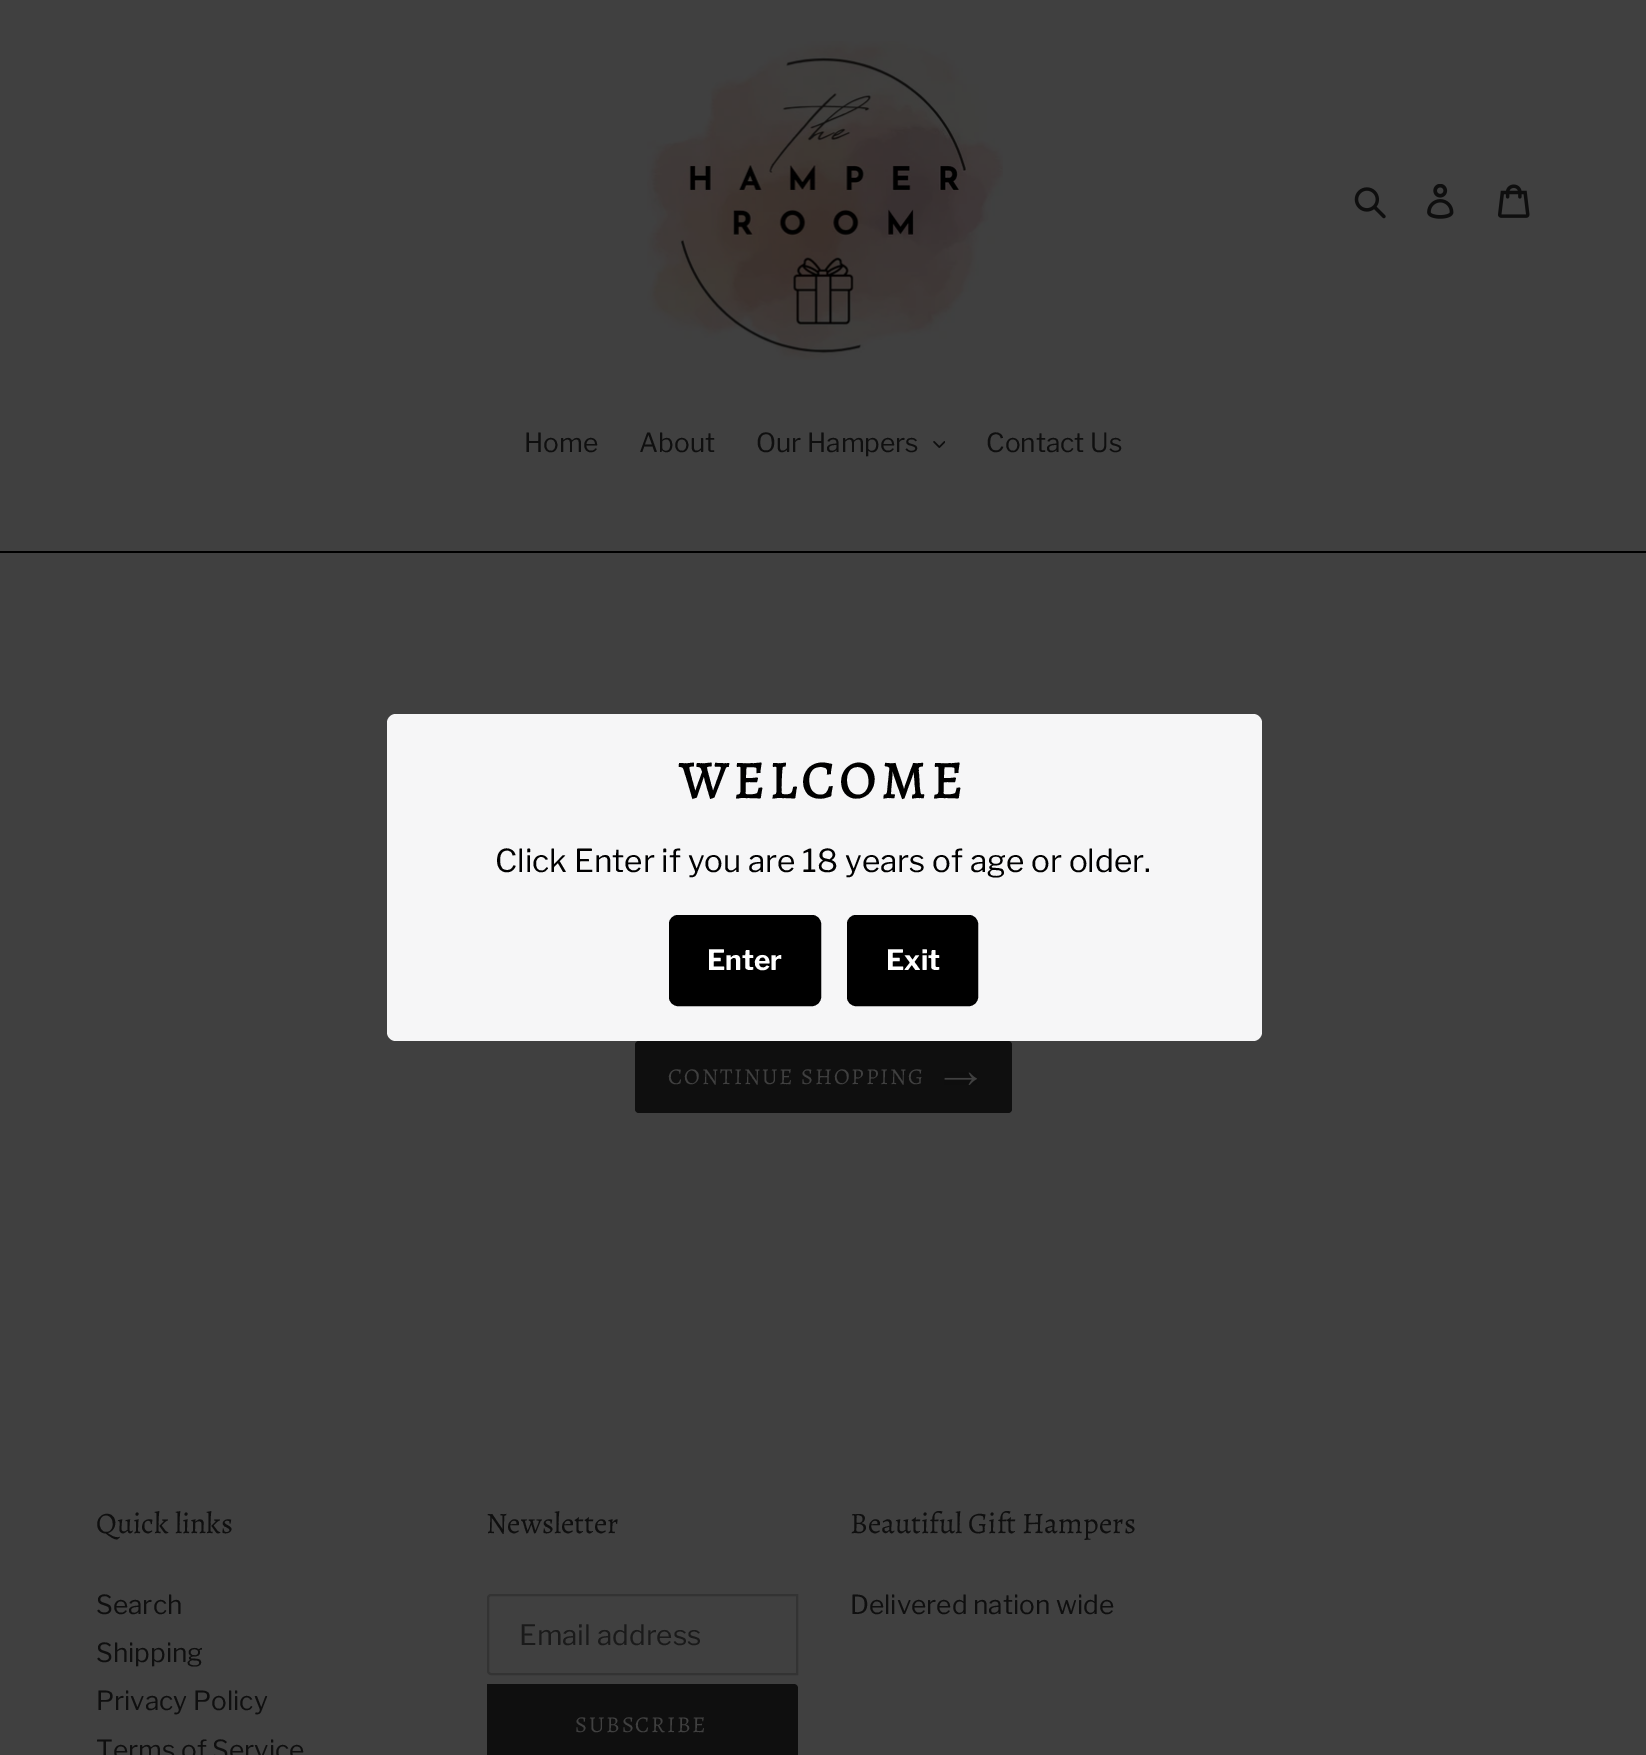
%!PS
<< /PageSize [1646 1755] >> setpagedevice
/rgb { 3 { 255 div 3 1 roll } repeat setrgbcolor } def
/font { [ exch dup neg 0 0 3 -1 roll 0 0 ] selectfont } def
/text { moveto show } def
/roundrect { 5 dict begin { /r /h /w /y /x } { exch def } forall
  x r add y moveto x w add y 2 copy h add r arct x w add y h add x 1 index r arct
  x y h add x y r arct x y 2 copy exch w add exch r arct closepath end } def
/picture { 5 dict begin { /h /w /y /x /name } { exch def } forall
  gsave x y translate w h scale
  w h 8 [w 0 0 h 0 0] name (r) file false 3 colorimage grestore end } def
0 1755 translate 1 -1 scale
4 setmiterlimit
64 64 64 rgb
0 0 1646 1755 rectfill
(img_01.rgb) 647 41 356 319 picture
(img_02.rgb) 1354 187 32 32 picture
(img_03.rgb) 1427 184 27 35 picture
(img_04.rgb) 1498 184 32 34 picture
0 0 0 rgb
0 551 1646 2 rectfill
(img_05.rgb) 933 441 12 7 picture
246 246 247 rgb
387 714 875 327 9 roundrect fill
0 0 0 rgb
671 917 148 87 7 roundrect gsave fill grestore
4 setlinewidth
stroke
849 917 127 87 7 roundrect gsave fill grestore
stroke
15 15 15 rgb
635 1041 377 72 4 roundrect fill
(img_06.rgb) 944 1072 33 13 picture
51 51 51 rgb
2 setlinewidth
491 1595 moveto 306 0 rlineto 0 79 rlineto -306 0 rlineto -1.5 0 -3 -1.5 -3 -3 rcurveto 0 -73 rlineto 0 -1.5 1.5 -3 3 -3 rcurveto closepath stroke
15 15 15 rgb
487 1684 moveto 307 0 rlineto 2 0 4 2 4 4 rcurveto 0 67 rlineto 0 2 -2 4 -4 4 rcurveto -307 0 rlineto closepath fill
/LibreFranklin-Regular 26.25 font
(Home) 524 452 text
(About) 639 452 text
(Our Hampers) 756 452 text
(Contact Us) 986 452 text
/Alegreya-Bold 52.5 font
0 0 0 rgb
679 798 moveto 5.25 0 (WELCOME) ashow
/LibreFranklin-Regular 31.5 font
(Click Enter if you are 18 years of age or older.) 495 872 text
/LibreFranklin-Bold 28 font
255 255 255 rgb
(Enter) 707 970 text
(Exit) 886 970 text
/Alegreya-Regular 22.75 font
64 64 64 rgb
668 1084 moveto 1.8 0 (CONTINUE SHOPPING) ashow
/Alegreya-Regular 29.75 font
15 15 15 rgb
(Quick links) 96 1533 text
/LibreFranklin-Regular 26.25 font
(Search) 96 1614 text
(Shipping) 96 1662 text
(Privacy Policy) 96 1710 text
(Terms of Service) 96 1759 text
/Alegreya-Regular 29.75 font
(Newsletter) 486 1533 text
/LibreFranklin-Regular 28 font
26 26 26 rgb
(Email address) 519 1645 text
/Alegreya-Regular 22.75 font
64 64 64 rgb
575 1732 moveto 1.8 0 (SUBSCRIBE) ashow
/Alegreya-Regular 29.75 font
15 15 15 rgb
(Beautiful Gift Hampers) 850 1533 text
/LibreFranklin-Regular 26.25 font
(Delivered nation wide) 850 1614 text
showpage
